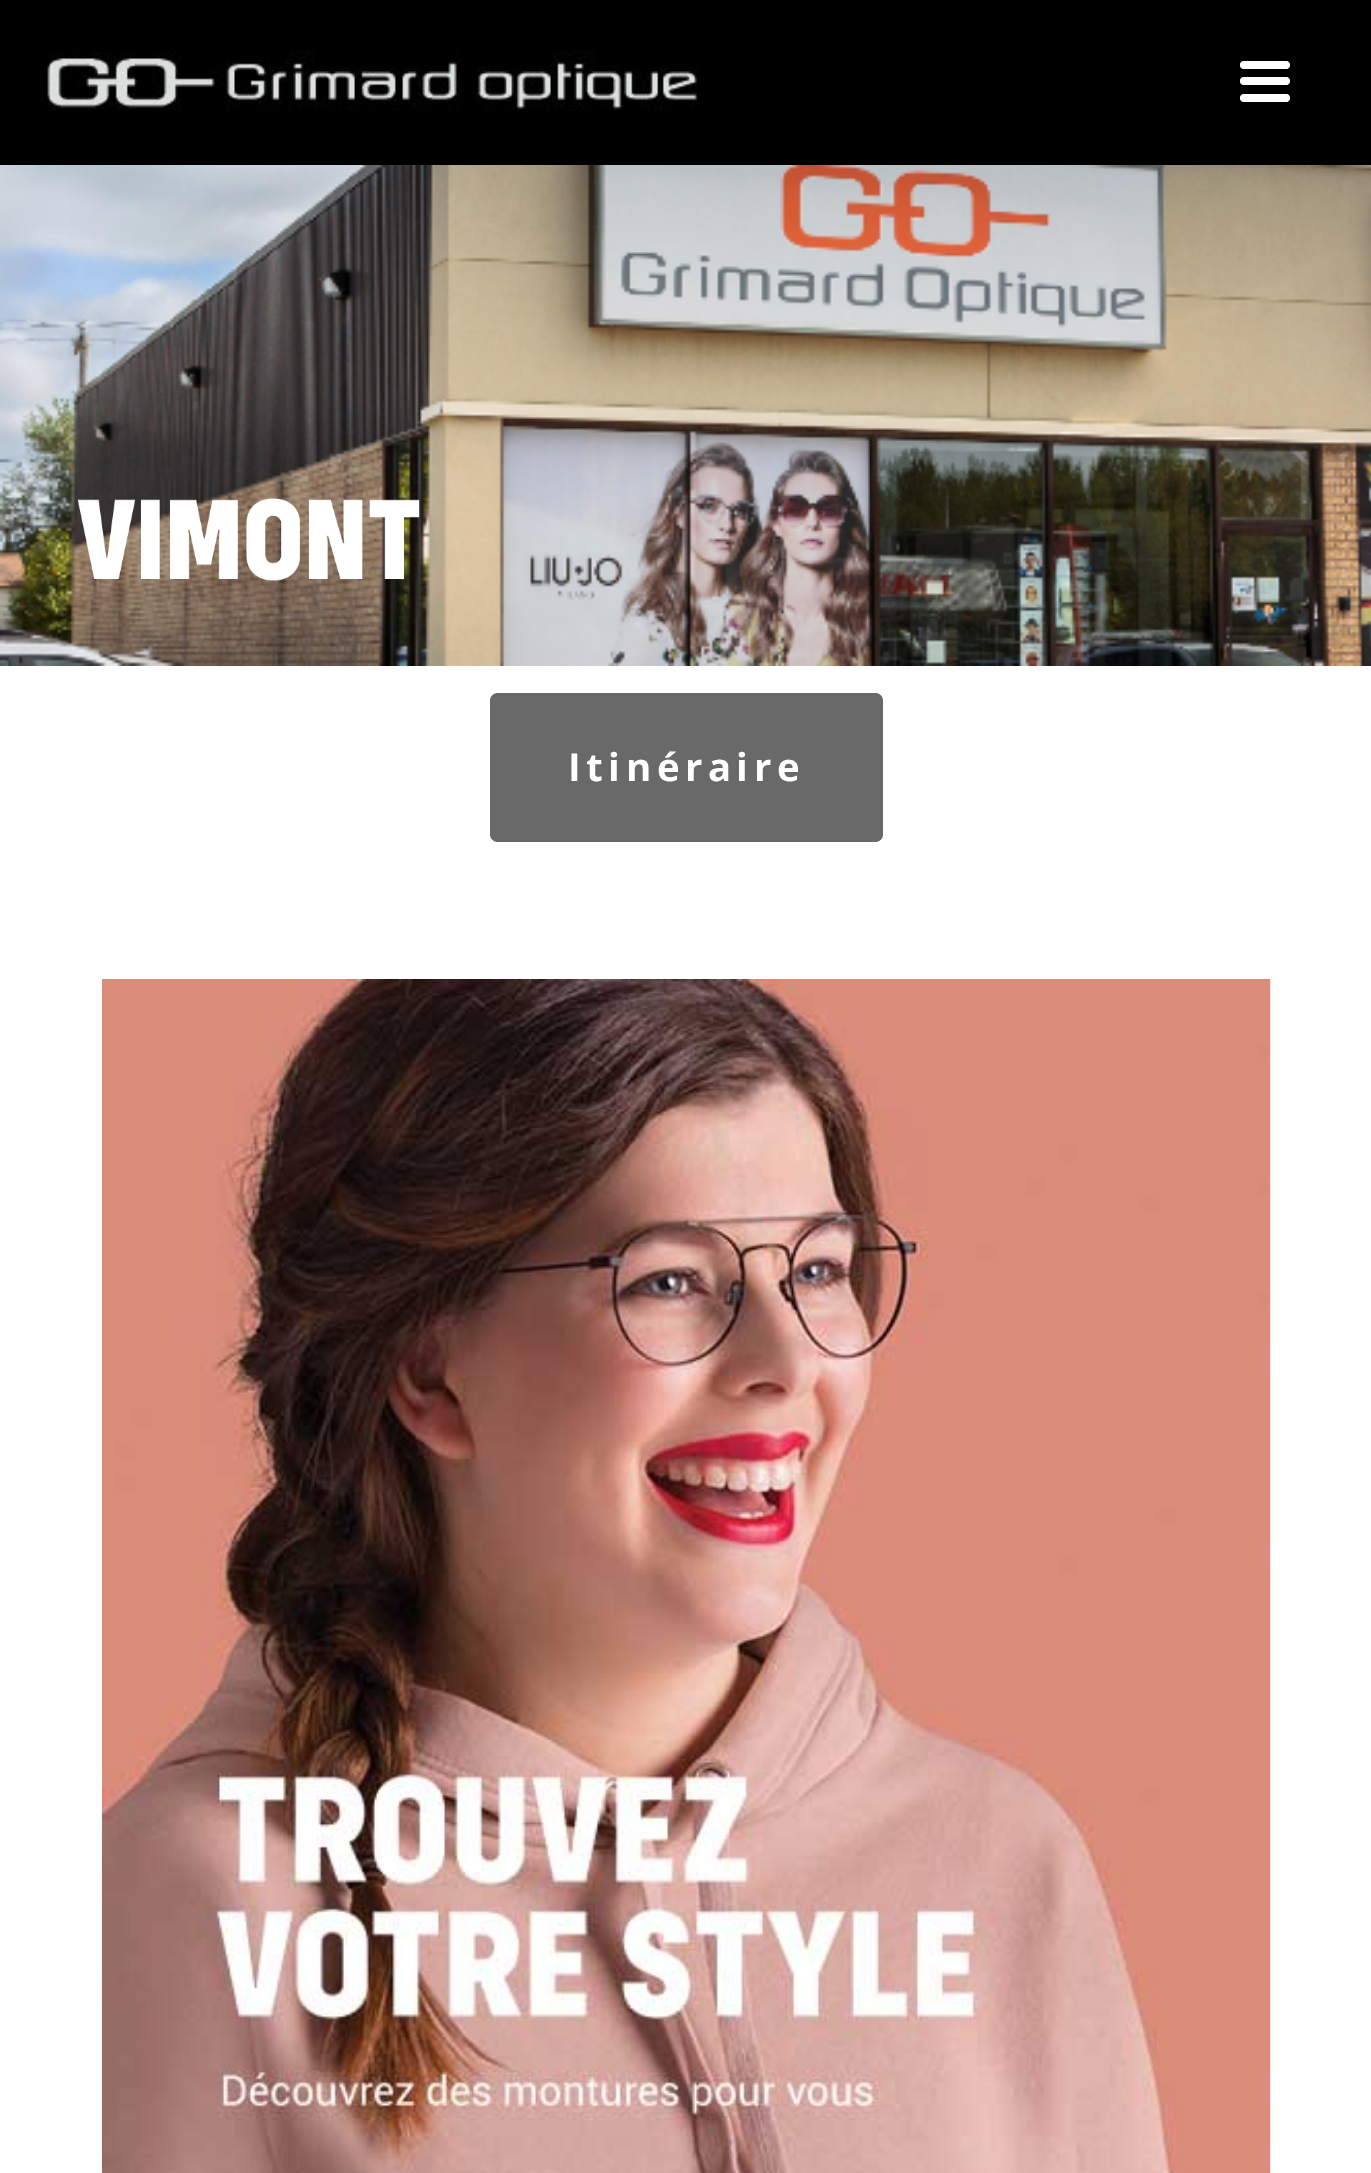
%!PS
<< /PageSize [1371 2173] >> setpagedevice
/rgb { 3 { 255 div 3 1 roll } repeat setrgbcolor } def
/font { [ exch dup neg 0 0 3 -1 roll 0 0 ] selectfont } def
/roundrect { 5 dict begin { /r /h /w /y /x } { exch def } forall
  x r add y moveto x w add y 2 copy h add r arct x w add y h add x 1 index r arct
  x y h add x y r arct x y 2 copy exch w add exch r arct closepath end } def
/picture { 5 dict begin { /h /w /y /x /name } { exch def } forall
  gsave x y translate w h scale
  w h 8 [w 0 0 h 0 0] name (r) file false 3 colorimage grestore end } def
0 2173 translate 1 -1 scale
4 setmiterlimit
255 255 255 rgb
0 0 1371 2173 rectfill
0 0 0 rgb
0 0 1371 165 rectfill
(img_01.rgb) 47 51 651 60 picture
255 255 255 rgb
1240 61 50 8 4 roundrect fill
1240 77 50 8 4 roundrect fill
1240 94 50 8 4 roundrect fill
(img_02.rgb) 0 165 1371 501 picture
(img_03.rgb) 77 498 343 83 picture
105 105 105 rgb
490 693 393 149 8 roundrect fill
(img_04.rgb) 101 979 1170 1194 picture
/OpenSans-Bold 38.5 font
255 255 255 rgb
568 781 moveto 5.5 0 (Itinéraire) ashow
showpage
